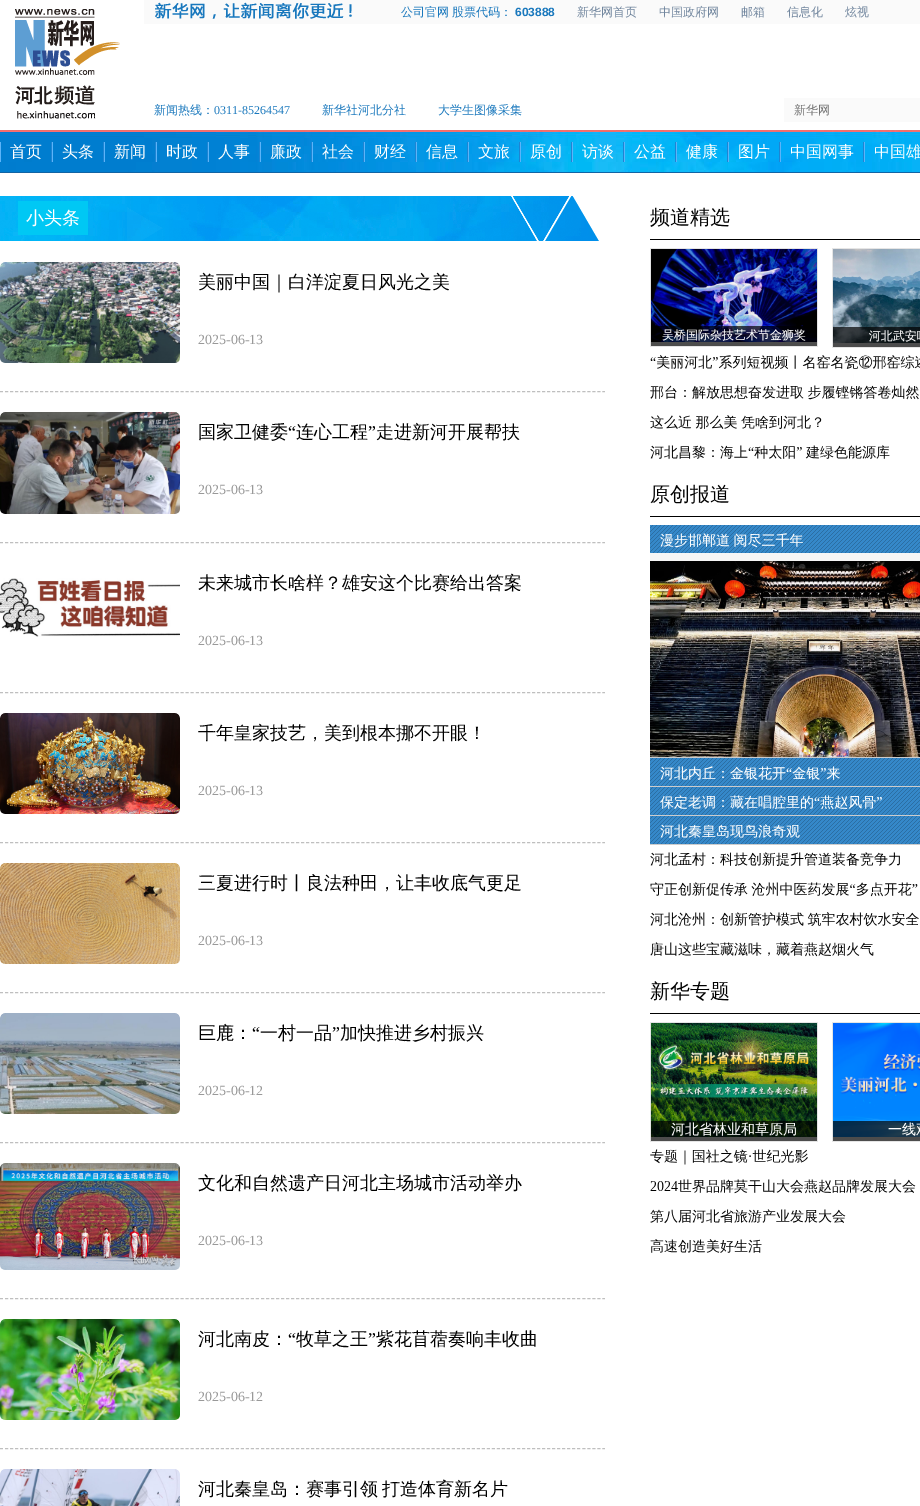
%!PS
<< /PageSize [920 1506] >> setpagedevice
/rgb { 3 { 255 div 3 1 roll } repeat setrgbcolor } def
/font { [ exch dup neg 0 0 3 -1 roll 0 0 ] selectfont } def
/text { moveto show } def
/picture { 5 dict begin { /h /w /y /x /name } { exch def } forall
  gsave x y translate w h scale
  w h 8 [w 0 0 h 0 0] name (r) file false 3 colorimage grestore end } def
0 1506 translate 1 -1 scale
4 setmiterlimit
255 255 255 rgb
0 0 920 1506 rectfill
(img_01.rgb) 15 9 105 110 picture
250 250 250 rgb
144 0 776 24 rectfill
(img_02.rgb) 155 2 197 17 picture
784 98 136 24 rectfill
(img_03.rgb) 0 130 920 42 picture
18 100 164 rgb
0 172 920 1 rectfill
31 132 210 rgb
51 142 1 20 rectfill
92 180 249 rgb
0 142 1 20 rectfill
31 132 210 rgb
103 142 1 20 rectfill
92 180 249 rgb
52 142 1 20 rectfill
31 132 210 rgb
155 142 1 20 rectfill
92 180 249 rgb
104 142 1 20 rectfill
31 132 210 rgb
207 142 1 20 rectfill
92 180 249 rgb
156 142 1 20 rectfill
31 132 210 rgb
259 142 1 20 rectfill
92 180 249 rgb
208 142 1 20 rectfill
31 132 210 rgb
311 142 1 20 rectfill
92 180 249 rgb
260 142 1 20 rectfill
31 132 210 rgb
363 142 1 20 rectfill
92 180 249 rgb
312 142 1 20 rectfill
31 132 210 rgb
415 142 1 20 rectfill
92 180 249 rgb
364 142 1 20 rectfill
31 132 210 rgb
467 142 1 20 rectfill
92 180 249 rgb
416 142 1 20 rectfill
31 132 210 rgb
519 142 1 20 rectfill
92 180 249 rgb
468 142 1 20 rectfill
31 132 210 rgb
571 142 1 20 rectfill
92 180 249 rgb
520 142 1 20 rectfill
31 132 210 rgb
623 142 1 20 rectfill
92 180 249 rgb
572 142 1 20 rectfill
31 132 210 rgb
675 142 1 20 rectfill
92 180 249 rgb
624 142 1 20 rectfill
31 132 210 rgb
727 142 1 20 rectfill
92 180 249 rgb
676 142 1 20 rectfill
31 132 210 rgb
779 142 1 20 rectfill
92 180 249 rgb
728 142 1 20 rectfill
31 132 210 rgb
863 142 1 20 rectfill
92 180 249 rgb
780 142 1 20 rectfill
864 142 1 20 rectfill
(img_04.rgb) 0 196 599 45 picture
0 200 244 rgb
18 201 70 34 rectfill
191 191 191 rgb
[3 2.02] 0 setdash
0 391.5 moveto 605 0 rlineto stroke
(img_05.rgb) 0 262 180 101 picture
0 542.5 moveto 605 0 rlineto stroke
(img_06.rgb) 0 412 180 102 picture
0 692.5 moveto 605 0 rlineto stroke
(img_07.rgb) 0 578 180 59 picture
0 842.5 moveto 605 0 rlineto stroke
(img_08.rgb) 0 713 180 101 picture
0 992.5 moveto 605 0 rlineto stroke
(img_09.rgb) 0 863 180 101 picture
0 1142.5 moveto 605 0 rlineto stroke
(img_10.rgb) 0 1013 180 101 picture
0 1298.5 moveto 605 0 rlineto stroke
(img_11.rgb) 0 1163 180 107 picture
0 1448.5 moveto 605 0 rlineto stroke
(img_12.rgb) 0 1319 180 101 picture
(img_13.rgb) 0 1469 180 37 picture
(img_14.rgb) 650 207 270 1046 picture
/WenQuanYiZenHei-Medium 12 font
25 120 189 rgb
(公司官网) 401 16 text
(股票代码：) 452 16 text
/LiberationSans-Bold 12 font
(603888) 515 16 text
/WenQuanYiZenHei-Medium 12 font
113 134 158 rgb
(新华网首页) 577 16 text
(中国政府网) 659 16 text
(邮箱) 741 16 text
(信息化) 787 16 text
(炫视) 845 16 text
25 120 189 rgb
(新闻热线：) 154 114 text
/LiberationSerif-Regular 12 font
(0311-85264547) 214 114 text
/WenQuanYiZenHei-Medium 12 font
(新华社河北分社) 322 114 text
(大学生图像采集) 438 114 text
117 117 117 rgb
(新华网) 794 114 text
/WenQuanYiZenHei-Medium 16 font
255 255 255 rgb
(首页) 10 157 text
(头条) 62 157 text
(新闻) 114 157 text
(时政) 166 157 text
(人事) 218 157 text
(廉政) 270 157 text
(社会) 322 157 text
(财经) 374 157 text
(信息) 426 157 text
(文旅) 478 157 text
(原创) 530 157 text
(访谈) 582 157 text
(公益) 634 157 text
(健康) 686 157 text
(图片) 738 157 text
(中国网事) 790 157 text
(中国雄) 874 157 text
/WenQuanYiZenHei-Medium 18 font
(小头条) 26 224 text
0 0 0 rgb
(美丽中国｜白洋淀夏日风光之美) 198 288 text
/LiberationSerif-Regular 14 font
153 153 153 rgb
(2025-06-13) 198 344 text
/WenQuanYiZenHei-Medium 18 font
0 0 0 rgb
(国家卫健委) 198 438 text
/LiberationSerif-Regular 18 font
(“) 288 438 text
/WenQuanYiZenHei-Medium 18 font
(连心工程) 296 438 text
/LiberationSerif-Regular 18 font
(”) 368 438 text
/WenQuanYiZenHei-Medium 18 font
(走进新河开展帮扶) 376 438 text
/LiberationSerif-Regular 14 font
153 153 153 rgb
(2025-06-13) 198 494 text
/WenQuanYiZenHei-Medium 18 font
0 0 0 rgb
(未来城市长啥样？雄安这个比赛给出答案) 198 589 text
/LiberationSerif-Regular 14 font
153 153 153 rgb
(2025-06-13) 198 645 text
/WenQuanYiZenHei-Medium 18 font
0 0 0 rgb
(千年皇家技艺，美到根本挪不开眼！) 198 739 text
/LiberationSerif-Regular 14 font
153 153 153 rgb
(2025-06-13) 198 795 text
/WenQuanYiZenHei-Medium 18 font
0 0 0 rgb
(三夏进行时丨良法种田，让丰收底气更足) 198 889 text
/LiberationSerif-Regular 14 font
153 153 153 rgb
(2025-06-13) 198 945 text
/WenQuanYiZenHei-Medium 18 font
0 0 0 rgb
(巨鹿：) 198 1039 text
/LiberationSerif-Regular 18 font
(“) 252 1039 text
/WenQuanYiZenHei-Medium 18 font
(一村一品) 260 1039 text
/LiberationSerif-Regular 18 font
(”) 332 1039 text
/WenQuanYiZenHei-Medium 18 font
(加快推进乡村振兴) 340 1039 text
/LiberationSerif-Regular 14 font
153 153 153 rgb
(2025-06-12) 198 1095 text
/WenQuanYiZenHei-Medium 18 font
0 0 0 rgb
(文化和自然遗产日河北主场城市活动举办) 198 1189 text
/LiberationSerif-Regular 14 font
153 153 153 rgb
(2025-06-13) 198 1245 text
/WenQuanYiZenHei-Medium 18 font
0 0 0 rgb
(河北南皮：) 198 1345 text
/LiberationSerif-Regular 18 font
(“) 288 1345 text
/WenQuanYiZenHei-Medium 18 font
(牧草之王) 296 1345 text
/LiberationSerif-Regular 18 font
(”) 368 1345 text
/WenQuanYiZenHei-Medium 18 font
(紫花苜蓿奏响丰收曲) 376 1345 text
/LiberationSerif-Regular 14 font
153 153 153 rgb
(2025-06-12) 198 1401 text
/WenQuanYiZenHei-Medium 18 font
0 0 0 rgb
198 1495 moveto -1 0 32 (河北秦皇岛：赛事引领 打造体育新名片) widthshow
showpage
